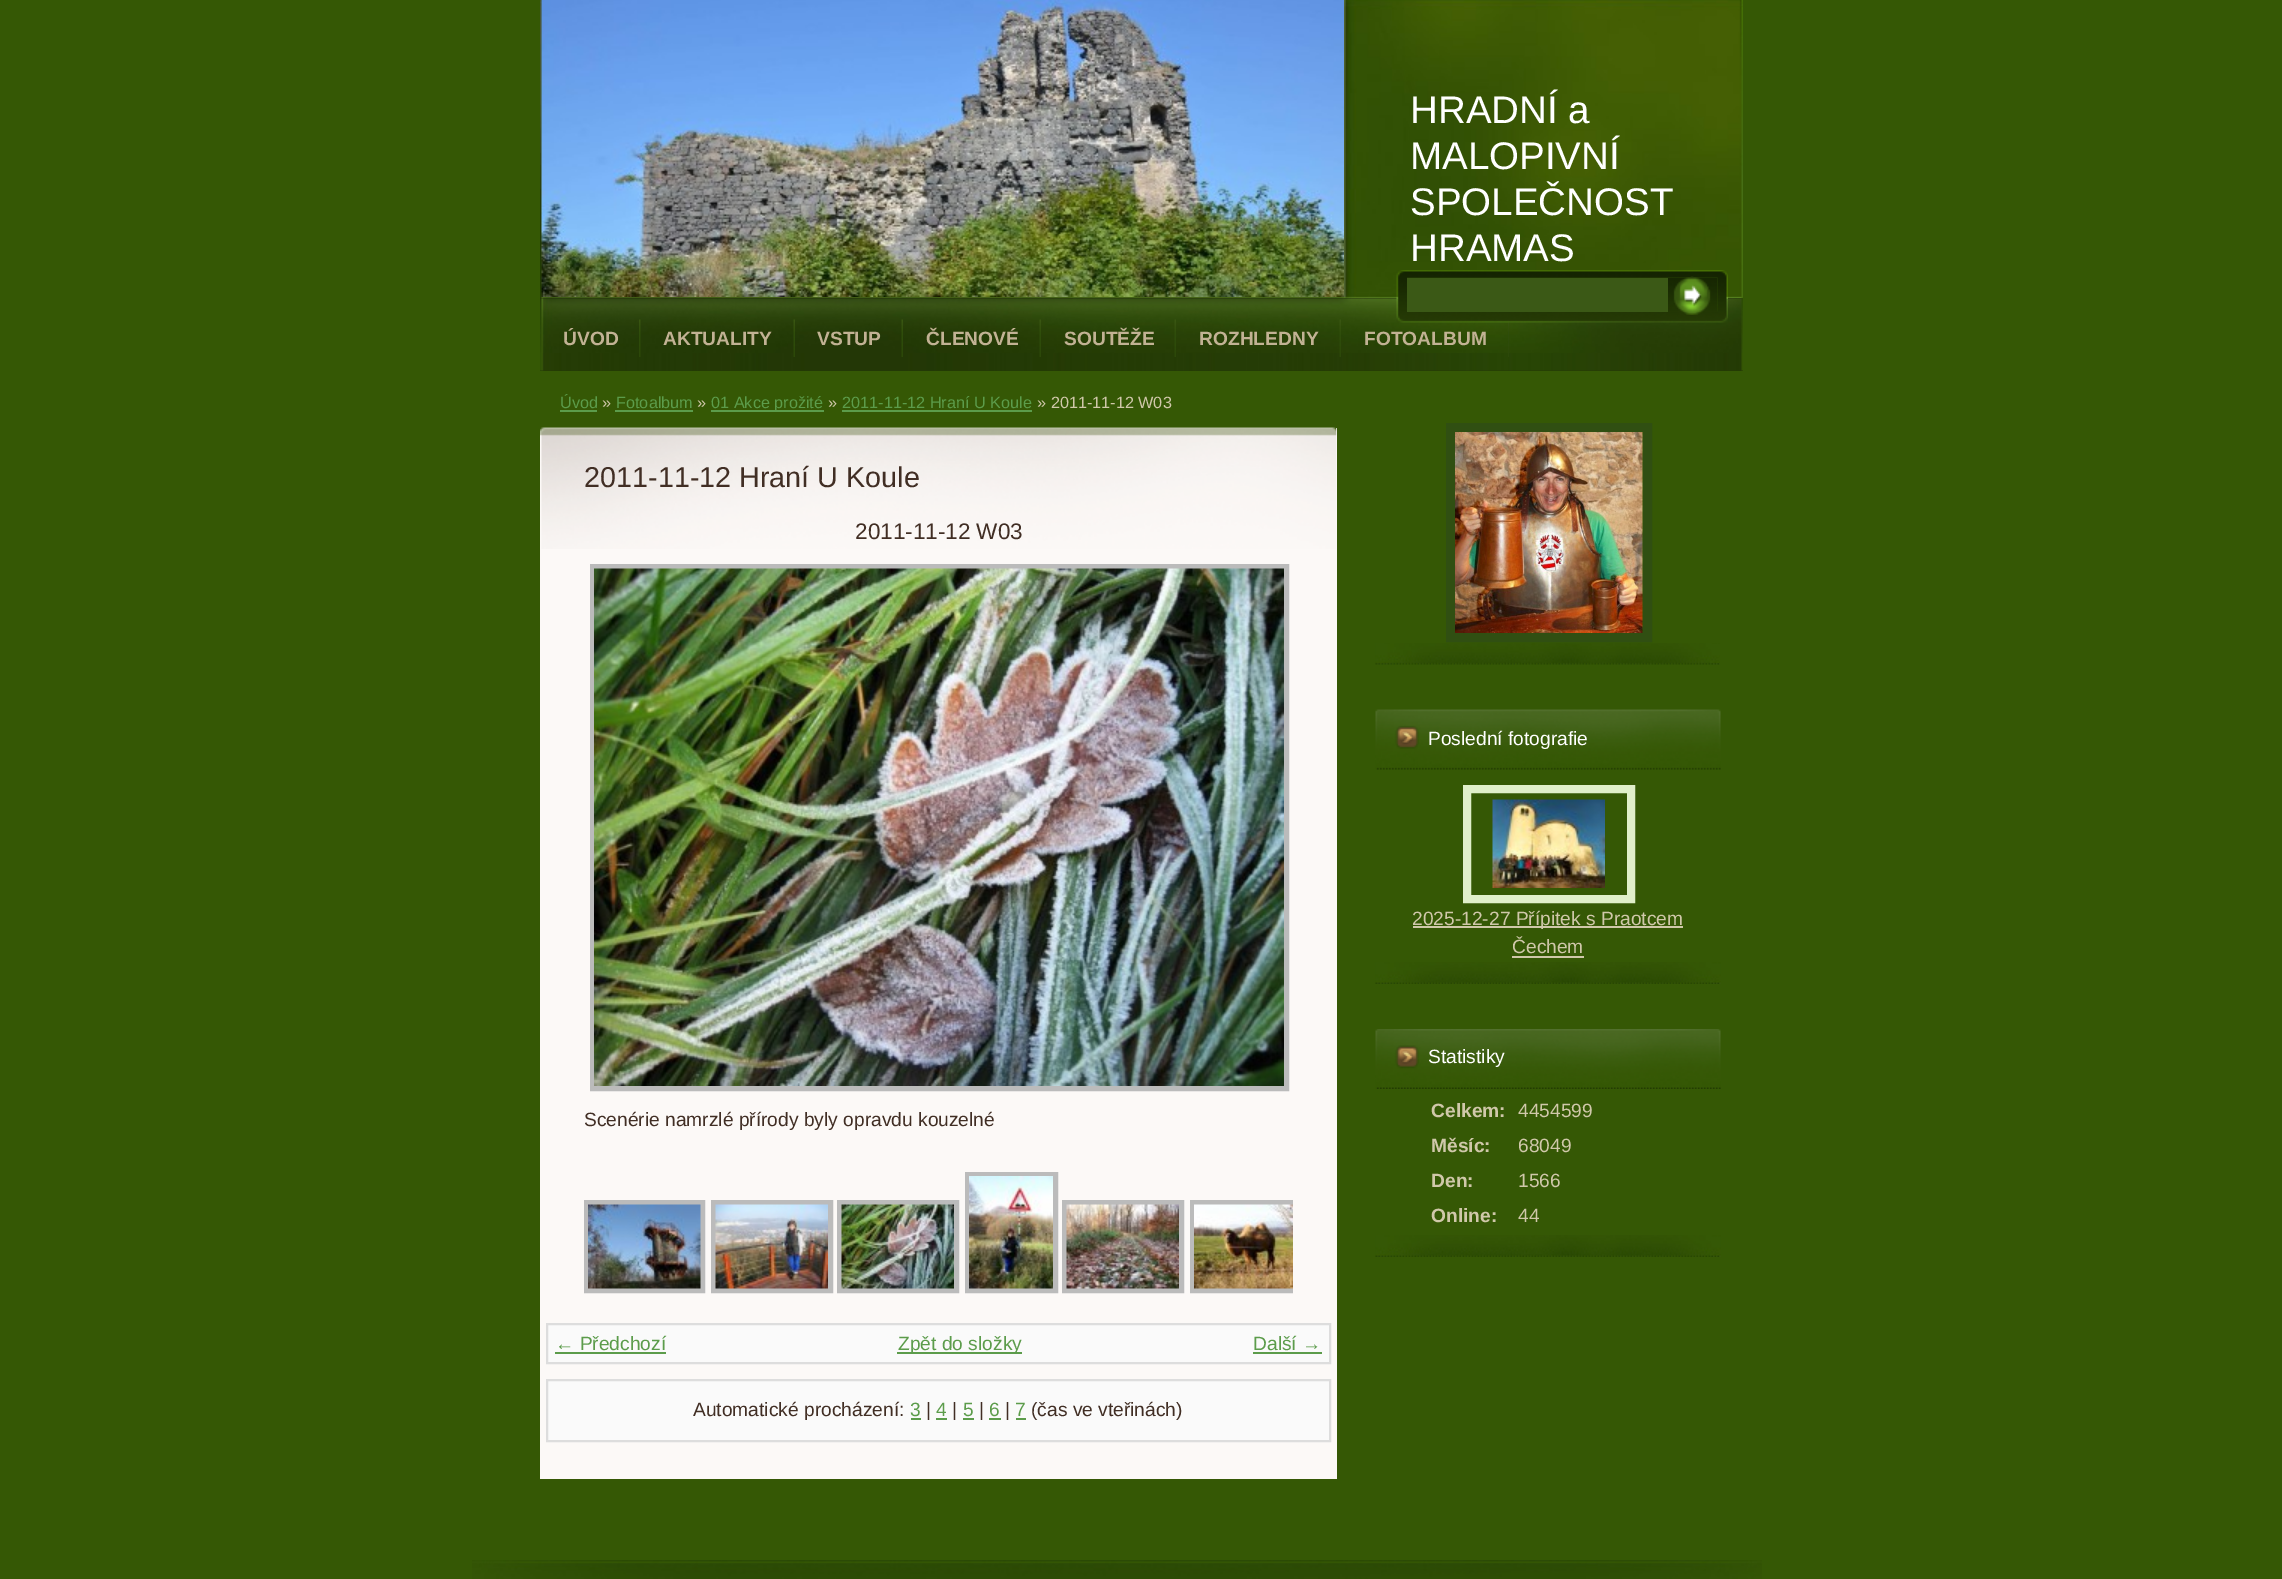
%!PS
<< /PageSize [2282 1579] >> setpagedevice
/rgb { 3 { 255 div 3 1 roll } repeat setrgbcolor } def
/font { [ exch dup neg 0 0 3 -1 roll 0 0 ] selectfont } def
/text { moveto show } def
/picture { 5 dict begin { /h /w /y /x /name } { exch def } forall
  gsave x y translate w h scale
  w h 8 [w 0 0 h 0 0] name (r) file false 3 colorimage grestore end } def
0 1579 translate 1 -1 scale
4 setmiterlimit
53 88 5 rgb
0 0 2282 1579 rectfill
(img_01.rgb) 540 0 1203 299 picture
(img_02.rgb) 541 0 803 297 picture
37 60 5 rgb
540 370 1203 1 rectfill
(img_03.rgb) 540 298 1203 73 picture
(img_04.rgb) 540 298 1203 55 picture
(img_05.rgb) 639 319 2 38 picture
(img_06.rgb) 793 319 2 38 picture
(img_07.rgb) 901 319 2 38 picture
(img_08.rgb) 1039 319 2 38 picture
(img_09.rgb) 1174 319 2 38 picture
(img_10.rgb) 1339 319 2 38 picture
(img_11.rgb) 1508 322 1 35 picture
92 156 75 rgb
560 410 37 2 rectfill
615 410 78 2 rectfill
711 410 113 2 rectfill
842 410 190 2 rectfill
252 249 247 rgb
540 428 797 1051 rectfill
(img_12.rgb) 540 427 797 122 picture
187 187 187 rgb
5 setlinewidth
592.5 566.5 694 522 rectstroke
(img_13.rgb) 594 568 690 518 picture
967.5 1174.5 88 116 rectstroke
586.5 1202.5 116 88 rectstroke
713.5 1202.5 117 88 rectstroke
839.5 1202.5 117 88 rectstroke
(img_14.rgb) 969 1176 84 113 picture
1064.5 1202.5 117 88 rectstroke
gsave
584 1172 709 129 rectclip
1192.5 1202.5 116 88 rectstroke
grestore
(img_15.rgb) 588 1204 113 85 picture
(img_16.rgb) 715 1204 113 85 picture
(img_17.rgb) 841 1204 113 85 picture
(img_18.rgb) 1066 1204 113 85 picture
(img_19.rgb) 1194 1204 99 85 picture
250 250 250 rgb
547 1324 moveto 783 0 rlineto 0 39 rlineto -783 0 rlineto closepath gsave fill grestore
221 221 221 rgb
2 setlinewidth
stroke
92 156 75 rgb
555 1352 111 2 rectfill
897 1352 125 2 rectfill
1253 1352 69 2 rectfill
250 250 250 rgb
547 1380 moveto 783 0 rlineto 0 61 rlineto -783 0 rlineto closepath gsave fill grestore
221 221 221 rgb
stroke
92 156 75 rgb
911 1418 10 2 rectfill
936 1418 11 2 rectfill
963 1418 11 2 rectfill
989 1418 12 2 rectfill
1016 1418 10 2 rectfill
(img_20.rgb) 1396 270 332 53 picture
(img_21.rgb) 1407 277 311 35 picture
(img_22.rgb) 1407 277 311 35 picture
59 89 22 rgb
1407 278 261 34 rectfill
(img_23.rgb) 1673 276 38 39 picture
(img_24.rgb) 1375 643 345 22 picture
48 79 18 rgb
9 setlinewidth
1450.5 427.5 197 210 rectstroke
(img_25.rgb) 1455 432 188 201 picture
(img_26.rgb) 1375 709 346 61 picture
(img_27.rgb) 1375 962 346 22 picture
224 239 202 rgb
8 setlinewidth
1467 789 164 110 rectstroke
(img_28.rgb) 1492 799 113 89 picture
208 200 170 rgb
1413 926 270 2 rectfill
1512 956 72 2 rectfill
(img_29.rgb) 1375 1029 346 60 picture
(img_27.rgb) 1375 1235 346 22 picture
(img_30.rgb) 472 1560 1290 19 picture
/LiberationSans-Regular 38.5 font
255 255 255 rgb
(HRADNÍ a) 1410 123 text
(MALOPIVNÍ) 1410 169 text
(SPOLEČNOST) 1410 215 text
(HRAMAS) 1410 261 text
/LiberationSans-Bold 19.2 font
194 178 148 rgb
(ÚVOD) 563 345 text
(AKTUALITY) 663 345 text
(VSTUP) 817 345 text
(ČLENOVÉ) 926 345 text
(SOUTĚŽE) 1064 345 text
(ROZHLEDNY) 1199 345 text
(FOTOALBUM) 1364 345 text
/LiberationSans-Regular 16.25 font
92 156 75 rgb
(Úvod) 560 408 text
208 200 170 rgb
(») 602 408 text
92 156 75 rgb
(Fotoalbum) 616 408 text
208 200 170 rgb
(») 697 408 text
92 156 75 rgb
(01 Akce prožité) 711 408 text
208 200 170 rgb
(») 828 408 text
92 156 75 rgb
(2011-11-12 Hraní U Koule) 842 408 text
208 200 170 rgb
(» 2011-11-12 W03) 1037 408 text
/LiberationSans-Regular 28.75 font
65 46 36 rgb
(2011-11-12 Hraní U Koule) 584 487 text
/LiberationSans-Regular 22.5 font
(2011-11-12 W03) 855 539 text
/LiberationSans-Regular 19.2 font
(Scenérie namrzlé přírody byly opravdu kouzelné) 584 1126 text
92 156 75 rgb
(← Předchozí) 555 1350 text
(Zpět do složky) 898 1350 text
(Další →) 1253 1350 text
65 46 36 rgb
(Automatické procházení:) 693 1416 text
92 156 75 rgb
(3) 910 1416 text
65 46 36 rgb
(|) 926 1416 text
92 156 75 rgb
(4) 936 1416 text
65 46 36 rgb
(|) 952 1416 text
92 156 75 rgb
(5) 963 1416 text
65 46 36 rgb
(|) 979 1416 text
92 156 75 rgb
(6) 989 1416 text
65 46 36 rgb
(|) 1005 1416 text
92 156 75 rgb
(7) 1015 1416 text
65 46 36 rgb
(\(čas ve vteřinách\)) 1031 1416 text
255 255 255 rgb
(Poslední fotografie) 1428 745 text
208 200 170 rgb
(2025-12-27 Přípitek s Praotcem) 1412 925 text
(Čechem) 1512 953 text
255 255 255 rgb
(Statistiky) 1428 1063 text
/LiberationSans-Bold 19.2 font
208 200 170 rgb
(Celkem:) 1431 1117 text
/LiberationSans-Regular 19.2 font
(4454599) 1518 1117 text
/LiberationSans-Bold 19.2 font
(Měsíc:) 1431 1152 text
/LiberationSans-Regular 19.2 font
(68049) 1518 1152 text
/LiberationSans-Bold 19.2 font
(Den:) 1431 1187 text
/LiberationSans-Regular 19.2 font
(1566) 1518 1187 text
/LiberationSans-Bold 19.2 font
(Online:) 1431 1222 text
/LiberationSans-Regular 19.2 font
(44) 1518 1222 text
showpage
